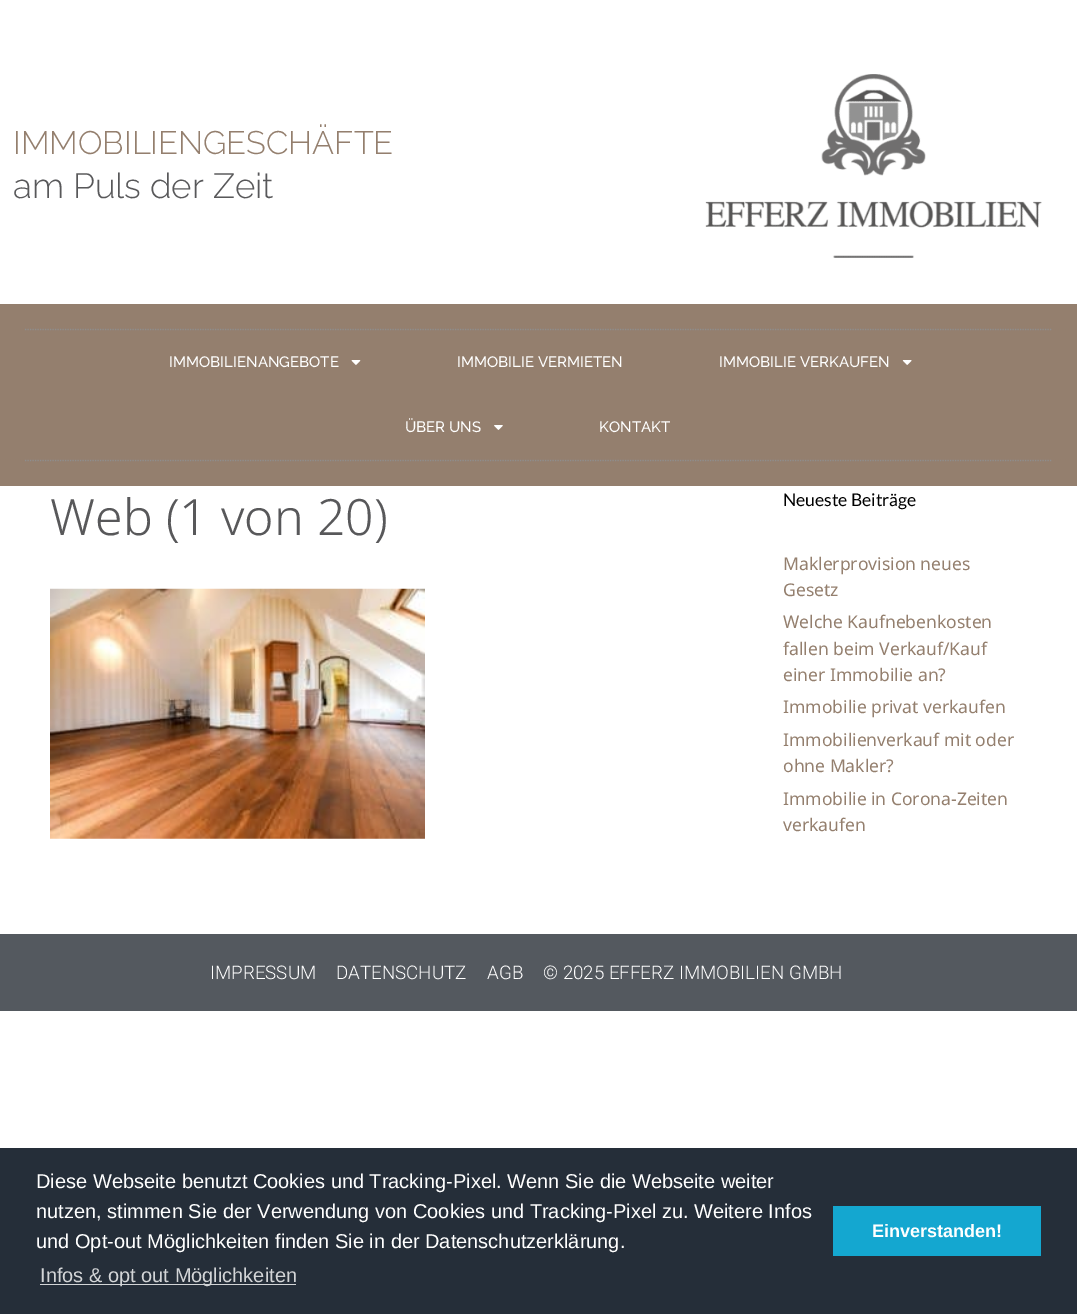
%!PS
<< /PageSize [1077 1314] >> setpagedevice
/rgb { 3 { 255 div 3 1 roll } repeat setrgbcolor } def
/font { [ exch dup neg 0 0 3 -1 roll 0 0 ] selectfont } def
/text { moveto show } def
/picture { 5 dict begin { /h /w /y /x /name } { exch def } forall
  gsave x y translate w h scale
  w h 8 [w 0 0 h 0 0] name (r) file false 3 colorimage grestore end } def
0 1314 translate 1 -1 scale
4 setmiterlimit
255 255 255 rgb
0 0 1077 1314 rectfill
(img_01.rgb) 705 74 337 184 picture
148 127 110 rgb
0 304 1077 182 rectfill
142 142 142 rgb
1.2 setlinewidth
[1.25 1.25] 0 setdash
25 329.5 moveto 1027.5 0 rlineto stroke
25 460.5 moveto 1027.5 0 rlineto stroke
(img_02.rgb) 351 360 10 5 picture
(img_03.rgb) 902 360 10 5 picture
(img_04.rgb) 494 425 9 5 picture
(img_05.rgb) 50 588 375 251 picture
84 89 95 rgb
0 934 1077 77 rectfill
37 46 57 rgb
0 1148 1077 166 rectfill
211 213 215 rgb
40 1284 256 1 rectfill
20 167 208 rgb
833 1206 208 50 rectfill
/Raleway-Light 32.5 font
148 127 110 rgb
(IMMOBILIENGESCHÄFTE) 13 154 text
/Raleway-Light 35 font
88 88 90 rgb
(am Puls der Zeit) 13 198 text
/Raleway-Medium 15 font
255 255 255 rgb
(IMMOBILIENANGEBOTE) 169 367 text
(IMMOBILIE VERMIETEN) 457 367 text
(IMMOBILIE VERKAUFEN) 719 367 text
(ÜBER UNS) 405 432 text
(KONTAKT) 599 432 text
/NotoSans-Light 50 font
88 88 90 rgb
(Web \(1 von 20\)) 50 535 text
/Lato-Regular 17.5 font
0 0 0 rgb
(Neueste Beiträge) 783 506 text
/NotoSans-Regular 17.5 font
148 127 110 rgb
(Maklerprovision neues) 783 570 text
(Gesetz) 783 596 text
(Welche Kaufnebenkosten) 783 628 text
(fallen beim Verkauf/Kauf) 783 655 text
(einer Immobilie an?) 783 681 text
(Immobilie privat verkaufen) 783 713 text
(Immobilienverkauf mit oder) 783 746 text
(ohne Makler?) 783 772 text
(Immobilie in Corona-Zeiten) 783 805 text
(verkaufen) 783 831 text
/Roboto-Light 18.75 font
255 255 255 rgb
(IMPRESSUM) 210 979 text
(DATENSCHUTZ) 336 979 text
(AGB) 487 979 text
(© 2025 EFFERZ IMMOBILIEN GMBH) 543 979 text
/LiberationSans-Regular 20 font
(Diese Webseite benutzt Cookies und Tracking-Pixel. Wenn Sie die Webseite weiter) 36 1188 text
(nutzen, stimmen Sie der Verwendung von Cookies und Tracking-Pixel zu. Weitere Infos) 36 1218 text
(und Opt-out Möglichkeiten finden Sie in der Datenschutzerklärung.) 36 1248 text
211 213 215 rgb
(Infos & opt out Möglichkeiten) 40 1282 text
/LiberationSans-Bold 18 font
255 255 255 rgb
(Einverstanden!) 872 1237 text
showpage
